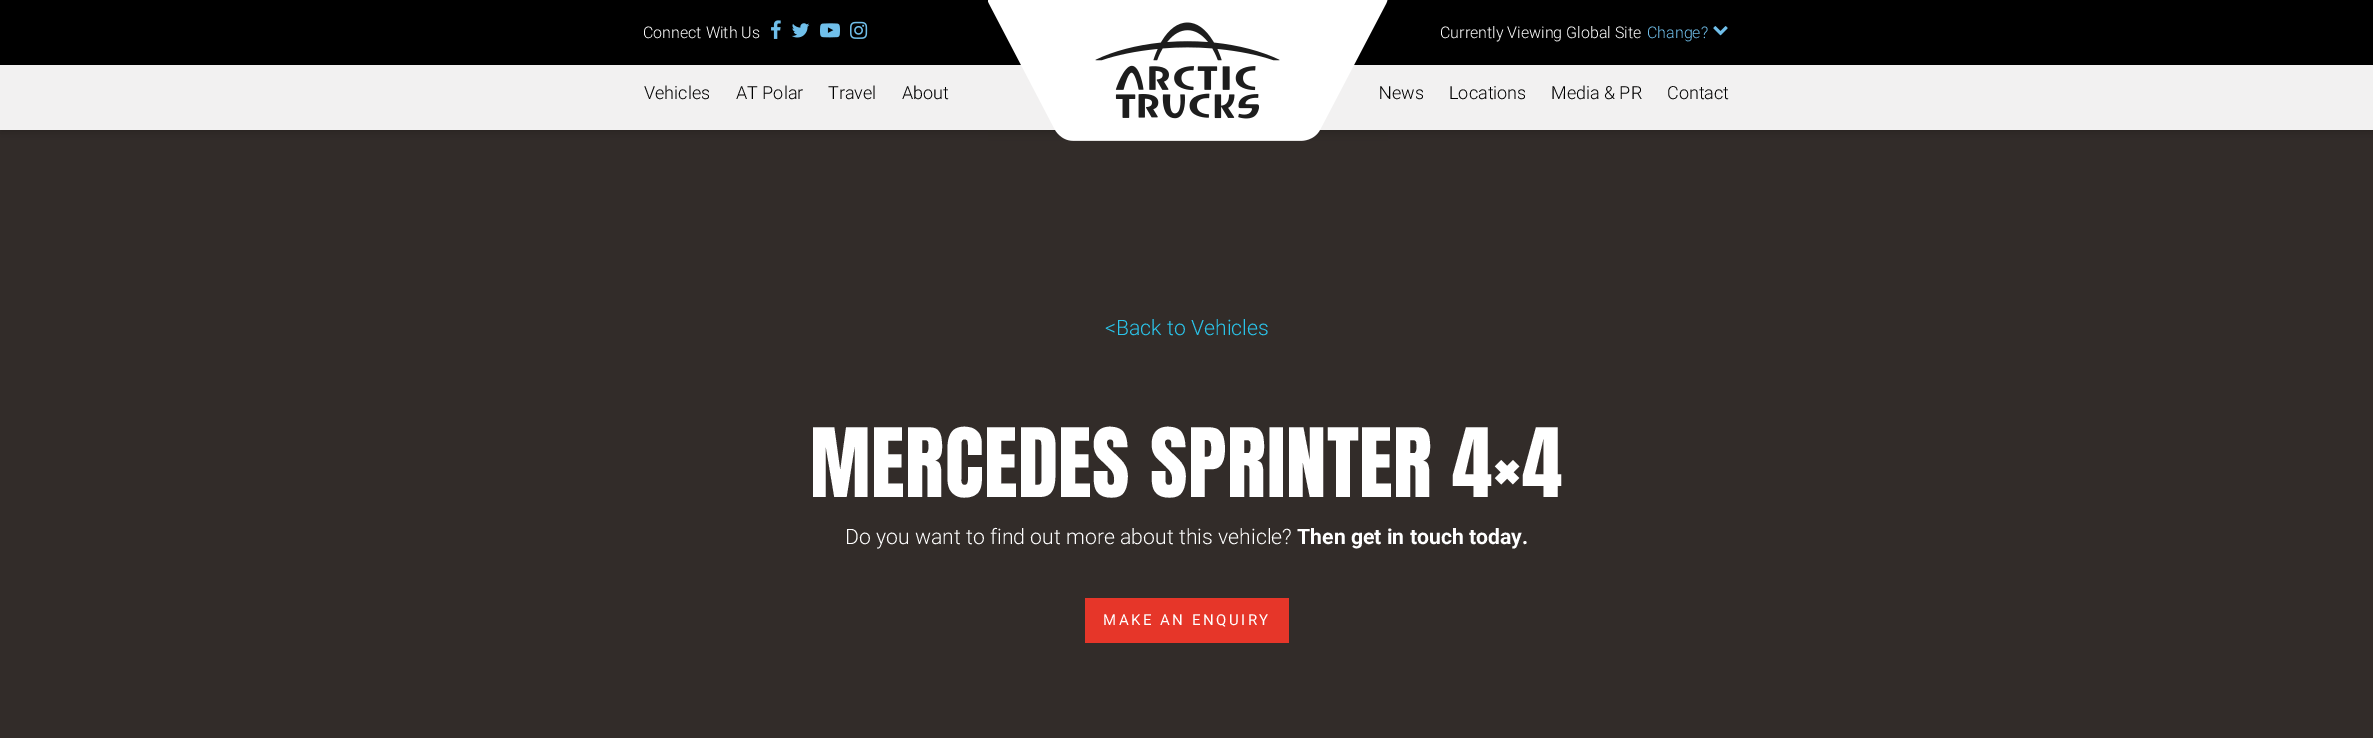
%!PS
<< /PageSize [2373 738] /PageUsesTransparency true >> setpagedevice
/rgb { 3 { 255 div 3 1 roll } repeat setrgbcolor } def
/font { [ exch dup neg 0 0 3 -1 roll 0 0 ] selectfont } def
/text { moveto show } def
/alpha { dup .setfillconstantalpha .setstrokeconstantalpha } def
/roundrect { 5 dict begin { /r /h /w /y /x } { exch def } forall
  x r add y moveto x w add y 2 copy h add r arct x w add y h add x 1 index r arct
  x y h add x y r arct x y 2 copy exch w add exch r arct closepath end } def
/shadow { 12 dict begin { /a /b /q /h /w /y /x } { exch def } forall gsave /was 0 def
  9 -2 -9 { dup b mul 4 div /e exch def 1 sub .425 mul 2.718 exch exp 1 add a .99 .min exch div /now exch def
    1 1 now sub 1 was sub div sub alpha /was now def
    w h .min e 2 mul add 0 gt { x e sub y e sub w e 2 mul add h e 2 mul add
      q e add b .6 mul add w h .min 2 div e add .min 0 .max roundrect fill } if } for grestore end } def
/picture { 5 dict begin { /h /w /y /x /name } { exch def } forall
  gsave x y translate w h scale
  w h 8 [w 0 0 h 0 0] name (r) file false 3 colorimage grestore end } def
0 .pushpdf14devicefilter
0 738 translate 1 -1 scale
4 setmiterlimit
50 44 41 rgb
0 0 2373 738 rectfill
0 0 0 rgb
0 0 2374 130 0 6 0.3 shadow
0 0 2373 65 rectfill
(img_02.rgb) 771 20 10 19 picture
(img_03.rgb) 791 23 19 15 picture
(img_04.rgb) 820 23 20 15 picture
(img_05.rgb) 850 21 18 18 picture
(img_06.rgb) 1713 26 15 10 picture
242 241 241 rgb
0 65 2373 65 rectfill
230 54 41 rgb
1085 598 204 45 rectfill
/Roboto-Light 16 font
255 255 255 rgb
(Connect With Us) 643 38 text
(Currently Viewing Global Site) 1440 38 text
112 191 234 rgb
(Change?) 1647 38 text
/Roboto-Light 18 font
0 0 0 rgb
(Vehicles) 644 99 text
(AT Polar) 736 99 text
(Travel) 828 99 text
(About) 902 99 text
(News) 1379 99 text
(img_01.rgb) 988 0 400 141 picture
(Locations) 1449 99 text
(Media & PR) 1551 99 text
(Contact) 1667 99 text
/Roboto-Light 21.25 font
42 196 234 rgb
(<Back to Vehicles) 1105 335 text
/Anton-Regular 81.25 font
255 255 255 rgb
810 497 moveto 0.6 0 (MERCEDES SPRINTER 4×4) ashow
/Roboto-Light 21.25 font
(Do you want to find out more about this vehicle?) 845 544 text
/Roboto-Bold 21.25 font
(Then get in touch today.) 1297 544 text
/Roboto-Regular 15 font
1103 625 moveto 2.5 0 (MAKE AN ENQUIRY) ashow
.poppdf14devicefilter showpage
